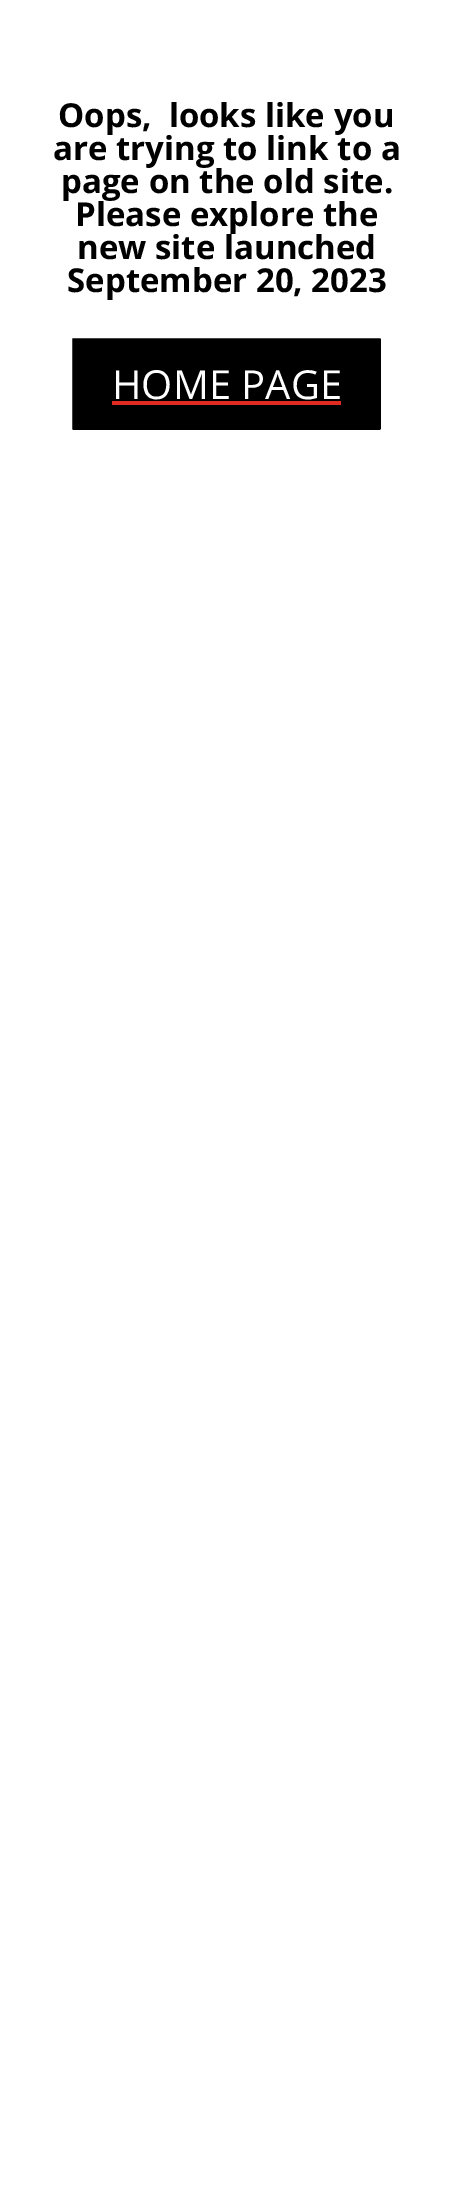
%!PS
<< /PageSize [453 2192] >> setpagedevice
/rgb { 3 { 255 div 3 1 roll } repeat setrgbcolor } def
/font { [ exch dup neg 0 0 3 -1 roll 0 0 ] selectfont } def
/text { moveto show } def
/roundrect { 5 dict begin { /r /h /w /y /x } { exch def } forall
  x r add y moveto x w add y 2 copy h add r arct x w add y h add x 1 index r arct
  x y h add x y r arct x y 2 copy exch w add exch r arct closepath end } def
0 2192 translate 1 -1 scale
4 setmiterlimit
255 255 255 rgb
0 0 453 2192 rectfill
0 0 0 rgb
71 337 311 94 2 roundrect gsave fill grestore
255 255 255 rgb
2 setlinewidth
stroke
224 43 32 rgb
112 401 229 4 rectfill
/OpenSans-Bold 33 font
0 0 0 rgb
(Oops,  looks like you) 58 127 text
(are trying to link to a) 53 160 text
(page on the old site.) 61 193 text
(Please explore the) 75 226 text
(new site launched) 77 259 text
(September 20, 2023) 67 292 text
/OpenSans-Regular 40 font
255 255 255 rgb
(HOME PAGE) 112 399 text
showpage
